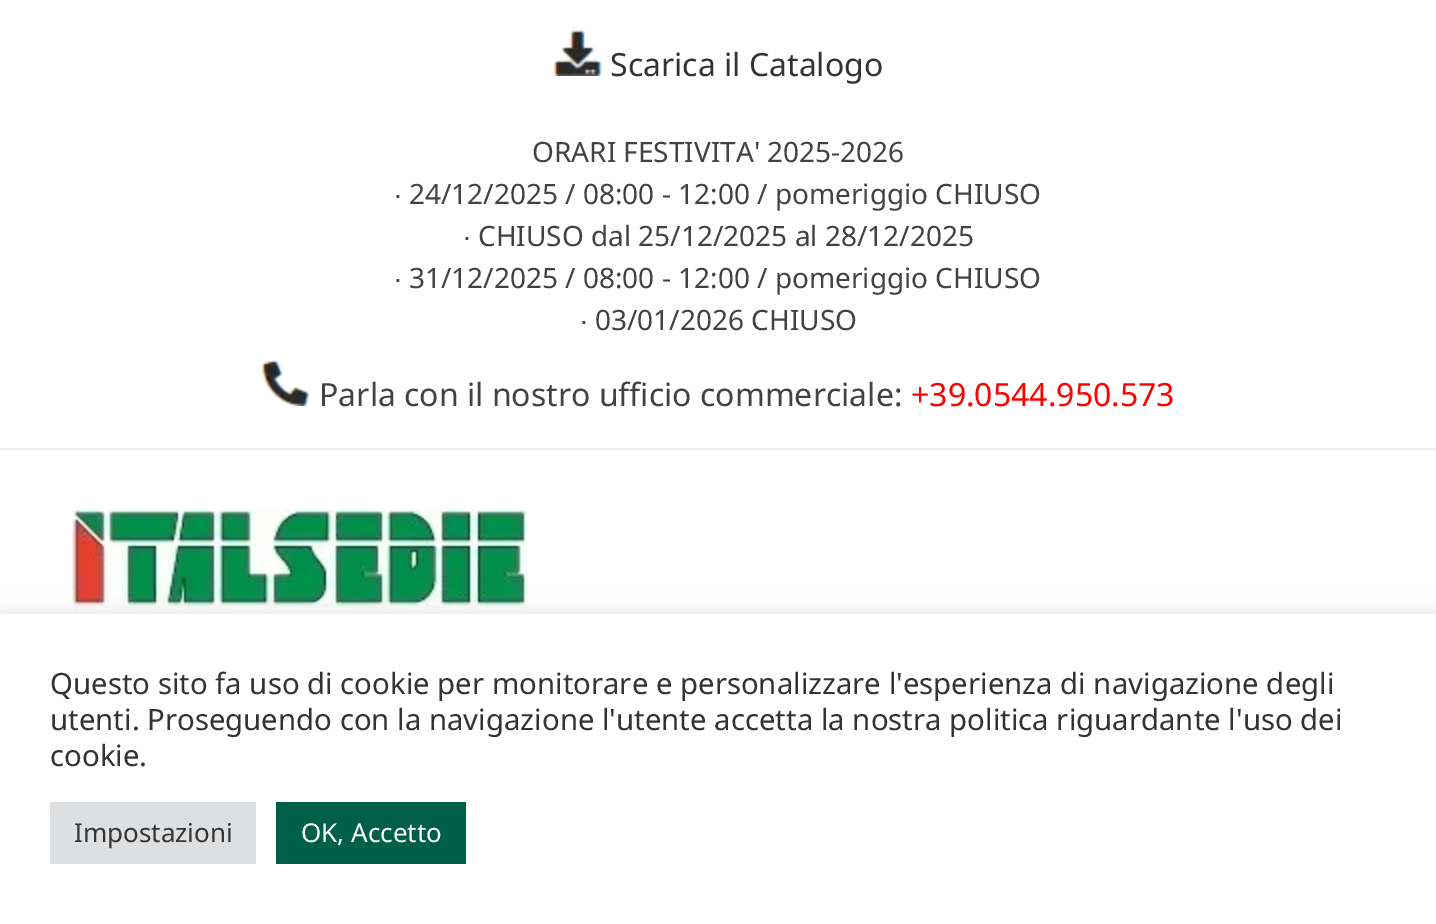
%!PS
<< /PageSize [1436 924] /PageUsesTransparency true >> setpagedevice
/rgb { 3 { 255 div 3 1 roll } repeat setrgbcolor } def
/font { [ exch dup neg 0 0 3 -1 roll 0 0 ] selectfont } def
/text { moveto show } def
/alpha { dup .setfillconstantalpha .setstrokeconstantalpha } def
/roundrect { 5 dict begin { /r /h /w /y /x } { exch def } forall
  x r add y moveto x w add y 2 copy h add r arct x w add y h add x 1 index r arct
  x y h add x y r arct x y 2 copy exch w add exch r arct closepath end } def
/shadow { 12 dict begin { /a /b /q /h /w /y /x } { exch def } forall gsave /was 0 def
  9 -2 -9 { dup b mul 4 div /e exch def 1 sub .425 mul 2.718 exch exp 1 add a .99 .min exch div /now exch def
    1 1 now sub 1 was sub div sub alpha /was now def
    w h .min e 2 mul add 0 gt { x e sub y e sub w e 2 mul add h e 2 mul add
      q e add b .6 mul add w h .min 2 div e add .min 0 .max roundrect fill } if } for grestore end } def
/picture { 5 dict begin { /h /w /y /x /name } { exch def } forall
  gsave x y translate w h scale
  w h 8 [w 0 0 h 0 0] name (r) file false 3 colorimage grestore end } def
0 .pushpdf14devicefilter
0 924 translate 1 -1 scale
4 setmiterlimit
255 255 255 rgb
0 0 1436 924 rectfill
238 238 238 rgb
0 448 1436 2 rectfill
(img_01.rgb) 554 30 48 46 picture
(img_02.rgb) 262 360 48 46 picture
(img_03.rgb) 72 510 456 104 picture
172 171 171 rgb
0 612 1436 310 0 10 0.3 shadow
255 255 255 rgb
0 614 1436 310 rectfill
222 223 224 rgb
50 802 206 62 rectfill
0 95 73 rgb
276 802 190 62 rectfill
/NotoSans-Regular 32 font
51 51 51 rgb
(Scarica il Catalogo) 610 76 text
/NotoSans-Regular 28 font
66 66 66 rgb
(ORARI FESTIVITA' 2025-2026) 532 162 text
/LiberationSans-Regular 28 font
(∙) 394 204 text
/NotoSans-Regular 28 font
(24/12/2025 / 08:00 - 12:00 / pomeriggio CHIUSO) 409 204 text
/LiberationSans-Regular 28 font
(∙) 463 246 text
/NotoSans-Regular 28 font
(CHIUSO dal 25/12/2025 al 28/12/2025) 478 246 text
/LiberationSans-Regular 28 font
(∙) 394 288 text
/NotoSans-Regular 28 font
(31/12/2025 / 08:00 - 12:00 / pomeriggio CHIUSO) 409 288 text
/LiberationSans-Regular 28 font
(∙) 580 330 text
/NotoSans-Regular 28 font
(03/01/2026 CHIUSO) 595 330 text
/NotoSans-Regular 32 font
(Parla con il nostro ufficio commerciale:) 319 406 text
255 0 0 rgb
(+39.0544.950.573) 911 406 text
/NotoSans-Regular 29.35 font
51 51 51 rgb
(Questo sito fa uso di cookie per monitorare e personalizzare l'esperienza di navigazione degli) 50 694 text
(utenti. Proseguendo con la navigazione l'utente accetta la nostra politica riguardante l'uso dei) 50 730 text
(cookie.) 50 766 text
/NotoSans-Regular 26 font
(Impostazioni) 74 842 text
255 255 255 rgb
(OK, Accetto) 301 842 text
.poppdf14devicefilter showpage
